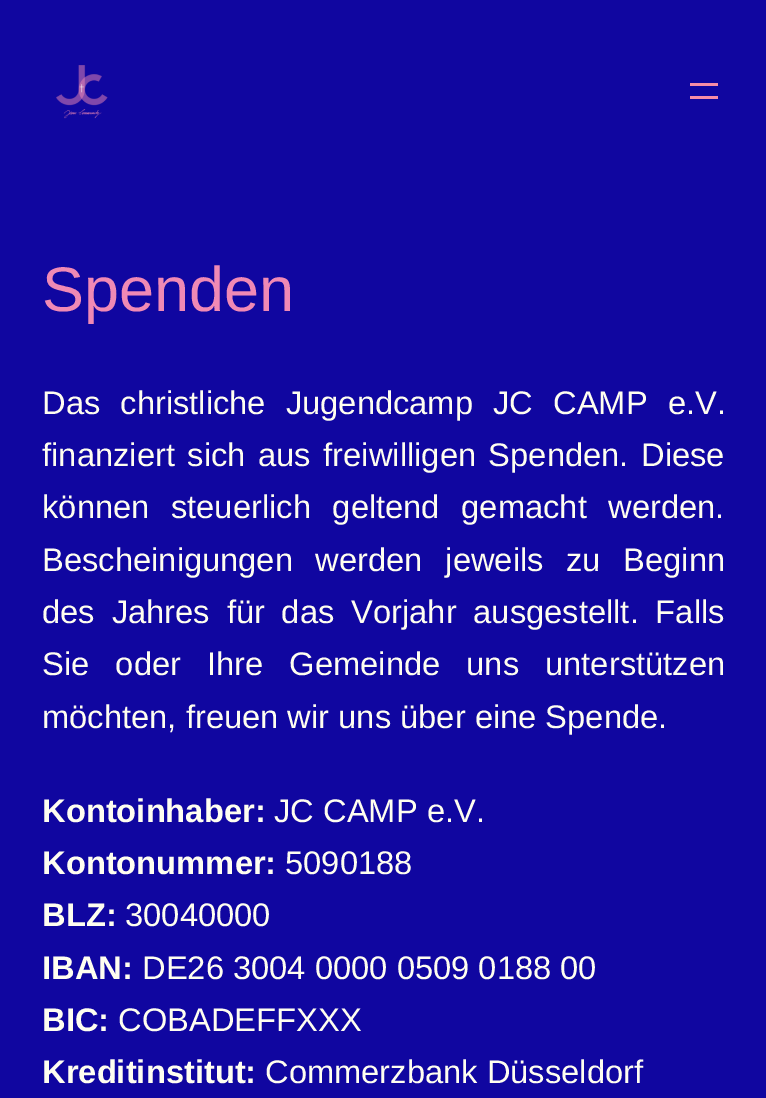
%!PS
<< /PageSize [766 1098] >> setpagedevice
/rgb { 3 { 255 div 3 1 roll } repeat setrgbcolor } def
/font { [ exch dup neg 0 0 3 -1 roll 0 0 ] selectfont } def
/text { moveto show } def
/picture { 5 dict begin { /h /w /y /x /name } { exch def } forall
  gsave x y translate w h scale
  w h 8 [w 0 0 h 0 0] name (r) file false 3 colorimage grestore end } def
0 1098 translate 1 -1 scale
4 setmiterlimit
16 6 160 rgb
0 0 766 1098 rectfill
(img_01.rgb) 56 65 52 54 picture
247 141 167 rgb
690 83 28 3 rectfill
690 96 28 3 rectfill
/LiberationSans-Regular 63 font
240 137 181 rgb
(Spenden) 42 311 text
/LiberationSans-Regular 32.7 font
255 254 240 rgb
42 414 moveto 11 0 32 (Das christliche Jugendcamp JC CAMP e.V.) widthshow
42 466 moveto 3.5 0 32 (finanziert sich aus freiwilligen Spenden. Diese) widthshow
42 518 moveto 12.5 0 32 (können steuerlich geltend gemacht werden.) widthshow
42 571 moveto 13.5 0 32 (Bescheinigungen werden jeweils zu Beginn) widthshow
42 623 moveto 7.75 0 32 (des Jahres für das Vorjahr ausgestellt. Falls) widthshow
42 675 moveto 17 0 32 (Sie oder Ihre Gemeinde uns unterstützen) widthshow
(möchten, freuen wir uns über eine Spende.) 42 728 text
/LiberationSans-Bold 32.7 font
(Kontoinhaber:) 42 822 text
/LiberationSans-Regular 32.7 font
(JC CAMP e.V.) 274 822 text
/LiberationSans-Bold 32.7 font
(Kontonummer:) 42 874 text
/LiberationSans-Regular 32.7 font
(5090188) 285 874 text
/LiberationSans-Bold 32.7 font
(BLZ:) 42 926 text
/LiberationSans-Regular 32.7 font
(30040000) 125 926 text
/LiberationSans-Bold 32.7 font
(IBAN:) 42 979 text
/LiberationSans-Regular 32.7 font
(DE26 3004 0000 0509 0188 00) 142 979 text
/LiberationSans-Bold 32.7 font
(BIC:) 42 1031 text
/LiberationSans-Regular 32.7 font
(COBADEFFXXX) 118 1031 text
/LiberationSans-Bold 32.7 font
(Kreditinstitut:) 42 1083 text
/LiberationSans-Regular 32.7 font
(Commerzbank Düsseldorf) 265 1083 text
showpage
